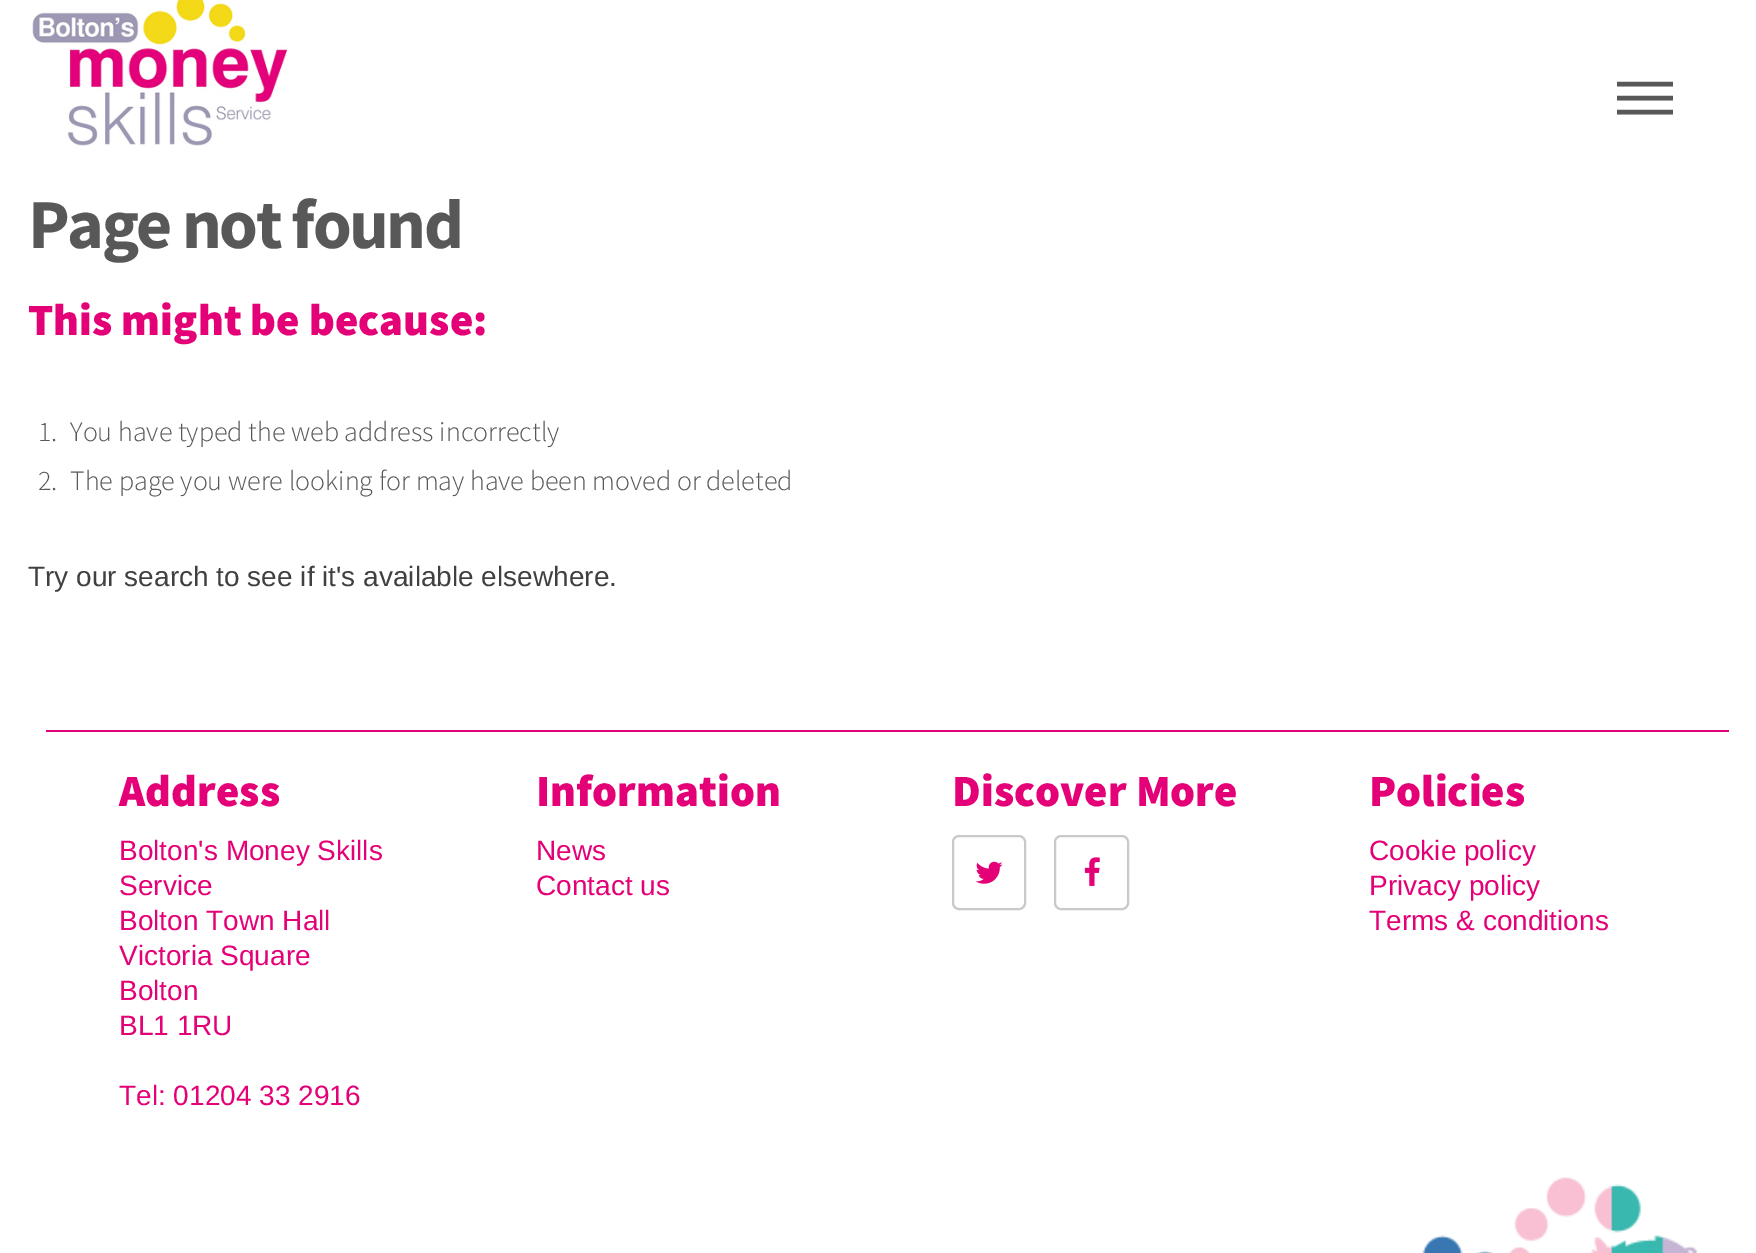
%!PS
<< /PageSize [1756 1253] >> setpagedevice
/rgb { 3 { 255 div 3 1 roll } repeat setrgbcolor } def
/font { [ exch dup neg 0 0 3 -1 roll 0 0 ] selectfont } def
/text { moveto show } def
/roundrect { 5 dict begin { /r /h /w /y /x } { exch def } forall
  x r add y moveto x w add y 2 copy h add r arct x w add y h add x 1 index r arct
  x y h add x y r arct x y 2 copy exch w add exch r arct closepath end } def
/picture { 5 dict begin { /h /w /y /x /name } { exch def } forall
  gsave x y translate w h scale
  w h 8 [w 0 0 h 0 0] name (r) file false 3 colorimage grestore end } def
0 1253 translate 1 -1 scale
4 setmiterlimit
255 255 255 rgb
0 0 1756 1253 rectfill
(img_01.rgb) 32 0 256 146 picture
88 88 88 rgb
4.5 setlinewidth
1617 84 moveto 56 0 rlineto 1617 98 moveto 56 0 rlineto 1617 112 moveto 56 0 rlineto stroke
228 0 118 rgb
46 730 1683 2 rectfill
201 201 201 rgb
2 setlinewidth
953 836 72 73 6 roundrect stroke
(img_02.rgb) 975 861 28 23 picture
1055 836 73 73 6 roundrect stroke
(img_03.rgb) 1084 857 16 29 picture
(img_04.rgb) 1422 1177 276 76 picture
/SourceSansPro-Bold 70 font
88 88 88 rgb
28 248 moveto -2.5 0 (Page not found) ashow
/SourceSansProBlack-Black 44.75 font
228 0 118 rgb
(This might be because:) 28 335 text
/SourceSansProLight-Light 28 font
88 88 88 rgb
(1.) 38 441 text
(You have typed the web address incorrectly) 70 441 text
(2.) 38 490 text
(The page you were looking for may have been moved or deleted) 70 490 text
/LiberationSans-Regular 28 font
64 64 64 rgb
(Try our search to see if it's available elsewhere.) 28 586 text
/SourceSansProBlack-Black 44.75 font
228 0 118 rgb
(Address) 119 806 text
/LiberationSans-Regular 28 font
(Bolton's Money Skills) 119 860 text
(Service) 119 895 text
(Bolton Town Hall) 119 930 text
(Victoria Square) 119 965 text
(Bolton) 119 1000 text
(BL1 1RU) 119 1035 text
(Tel: 01204 33 2916) 119 1105 text
/SourceSansProBlack-Black 44.75 font
(Information) 536 806 text
/LiberationSans-Regular 28 font
(News) 536 860 text
(Contact us) 536 895 text
/SourceSansProBlack-Black 44.75 font
(Discover More) 952 806 text
(Policies) 1369 806 text
/LiberationSans-Regular 28 font
(Cookie policy) 1369 860 text
(Privacy policy) 1369 895 text
(Terms & conditions) 1369 930 text
showpage
